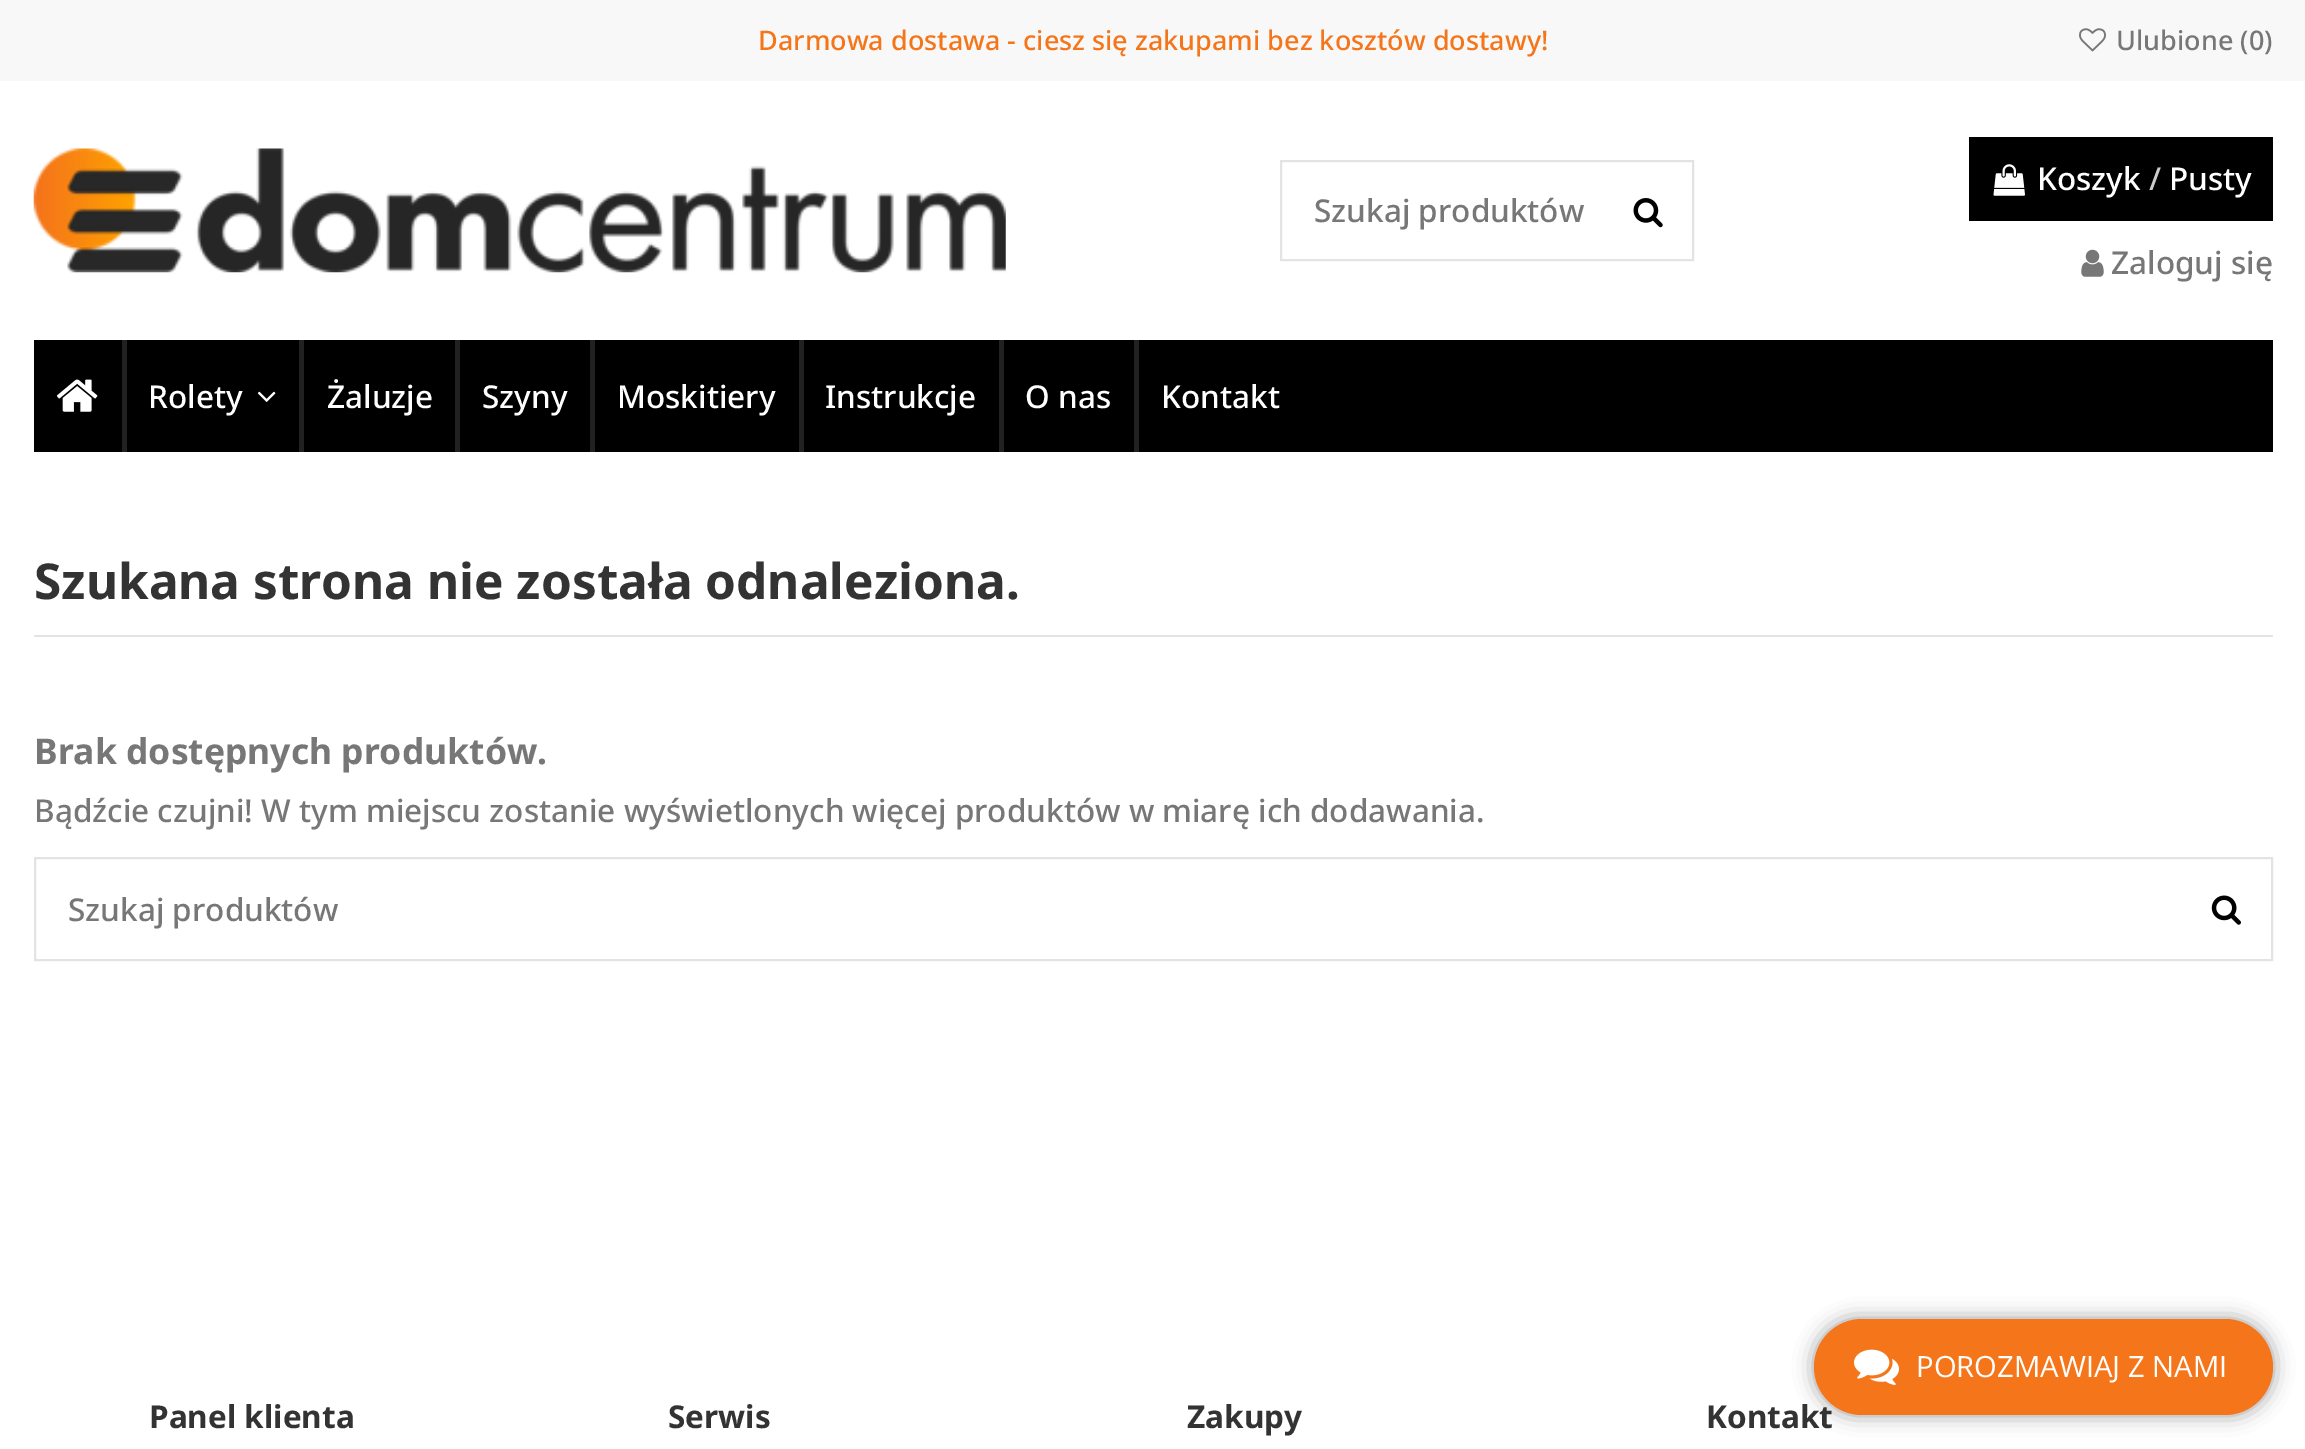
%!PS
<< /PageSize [2305 1449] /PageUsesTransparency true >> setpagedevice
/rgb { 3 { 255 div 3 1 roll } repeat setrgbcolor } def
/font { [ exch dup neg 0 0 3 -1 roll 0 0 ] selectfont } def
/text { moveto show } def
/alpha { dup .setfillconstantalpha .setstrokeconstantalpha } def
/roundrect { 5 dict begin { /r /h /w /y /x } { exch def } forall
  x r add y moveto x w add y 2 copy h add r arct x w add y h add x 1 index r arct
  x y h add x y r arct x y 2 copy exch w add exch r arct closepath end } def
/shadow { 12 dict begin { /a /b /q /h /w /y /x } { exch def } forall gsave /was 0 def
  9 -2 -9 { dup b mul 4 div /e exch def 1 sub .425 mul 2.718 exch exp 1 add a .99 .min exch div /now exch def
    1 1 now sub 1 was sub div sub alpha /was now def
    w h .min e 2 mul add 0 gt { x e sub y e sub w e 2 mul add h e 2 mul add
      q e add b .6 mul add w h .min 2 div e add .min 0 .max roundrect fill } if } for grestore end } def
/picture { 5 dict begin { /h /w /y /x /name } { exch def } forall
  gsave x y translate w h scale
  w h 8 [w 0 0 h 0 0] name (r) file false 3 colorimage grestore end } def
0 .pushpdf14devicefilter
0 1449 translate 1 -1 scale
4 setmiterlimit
255 255 255 rgb
0 0 2305 1449 rectfill
248 248 248 rgb
0 0 2305 81 rectfill
(img_01.rgb) 2079 28 27 24 picture
(img_02.rgb) 33 148 973 125 picture
227 227 227 rgb
2 setlinewidth
1281 161 412 99 rectstroke
(img_03.rgb) 1633 198 30 30 picture
0 0 0 rgb
1969 137 304 84 rectfill
(img_04.rgb) 1993 164 32 32 picture
(img_05.rgb) 2081 249 23 28 picture
34 340 2239 112 rectfill
(img_06.rgb) 56 379 42 33 picture
33 33 33 rgb
122 340 5 112 rectfill
(img_07.rgb) 257 391 19 11 picture
299 340 5 112 rectfill
455 340 5 112 rectfill
590 340 5 112 rectfill
799 340 5 112 rectfill
999 340 5 112 rectfill
1134 340 5 112 rectfill
227 227 227 rgb
34 635 2239 2 rectfill
35 858 2237 102 rectstroke
(img_08.rgb) 2211 895 30 30 picture
153 153 153 rgb
1814 1319 459 96 48 10 1 shadow
/NotoSans-Medium 27 font
245 118 26 rgb
(Darmowa dostawa - ciesz się zakupami bez kosztów dostawy!) 758 50 text
119 119 119 rgb
(Ulubione \(0\)) 2116 50 text
/NotoSans-Medium 31.5 font
(Szukaj produktów) 1314 222 text
255 255 255 rgb
(Koszyk) 2037 190 text
204 204 204 rgb
(/) 2149 190 text
255 255 255 rgb
(Pusty) 2169 190 text
119 119 119 rgb
(Zaloguj się) 2111 274 text
255 255 255 rgb
(Rolety) 148 408 text
(Żaluzje) 327 408 text
(Szyny) 482 408 text
(Moskitiery) 617 408 text
(Instrukcje) 825 408 text
(O nas) 1025 408 text
(Kontakt) 1161 408 text
/NotoSans-Bold 49.5 font
51 51 51 rgb
(Szukana strona nie została odnaleziona.) 34 599 text
/NotoSans-Bold 35.5 font
119 119 119 rgb
(Brak dostępnych produktów.) 34 764 text
/NotoSans-Medium 31.5 font
(Bądźcie czujni! W tym miejscu zostanie wyświetlonych więcej produktów w miarę ich dodawania.) 34 822 text
(Szukaj produktów) 68 921 text
/NotoSans-Bold 31.5 font
51 51 51 rgb
(Panel klienta) 149 1428 text
(Serwis) 668 1428 text
(Zakupy) 1187 1428 text
(Kontakt) 1706 1428 text
245 118 26 rgb
1814 1319 459 96 48 roundrect fill
(img_09.rgb) 1854 1349 45 36 picture
/OpenSans-Regular 29.25 font
255 255 255 rgb
(POROZMAWIAJ Z NAMI) 1916 1377 text
.poppdf14devicefilter showpage
